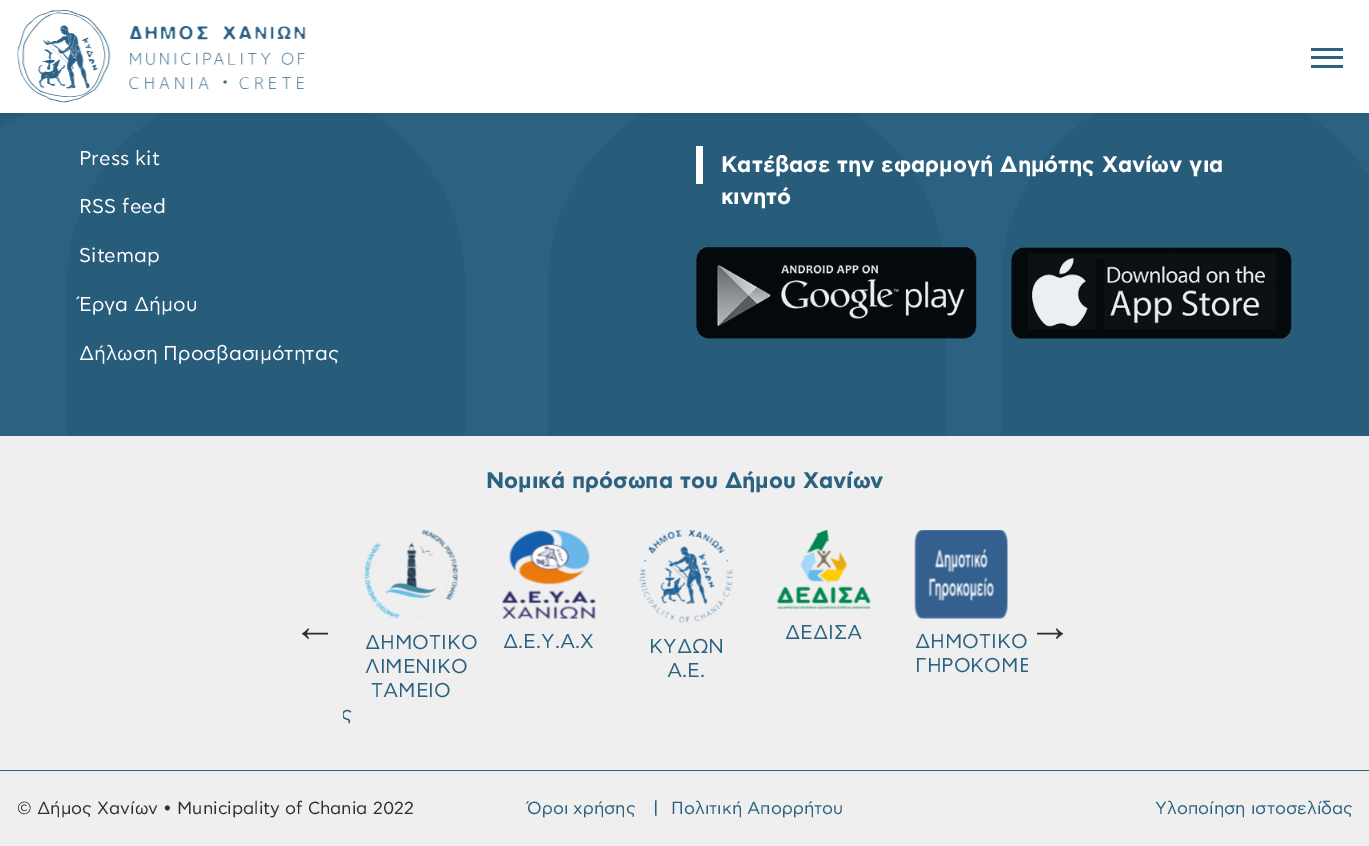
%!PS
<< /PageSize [1369 846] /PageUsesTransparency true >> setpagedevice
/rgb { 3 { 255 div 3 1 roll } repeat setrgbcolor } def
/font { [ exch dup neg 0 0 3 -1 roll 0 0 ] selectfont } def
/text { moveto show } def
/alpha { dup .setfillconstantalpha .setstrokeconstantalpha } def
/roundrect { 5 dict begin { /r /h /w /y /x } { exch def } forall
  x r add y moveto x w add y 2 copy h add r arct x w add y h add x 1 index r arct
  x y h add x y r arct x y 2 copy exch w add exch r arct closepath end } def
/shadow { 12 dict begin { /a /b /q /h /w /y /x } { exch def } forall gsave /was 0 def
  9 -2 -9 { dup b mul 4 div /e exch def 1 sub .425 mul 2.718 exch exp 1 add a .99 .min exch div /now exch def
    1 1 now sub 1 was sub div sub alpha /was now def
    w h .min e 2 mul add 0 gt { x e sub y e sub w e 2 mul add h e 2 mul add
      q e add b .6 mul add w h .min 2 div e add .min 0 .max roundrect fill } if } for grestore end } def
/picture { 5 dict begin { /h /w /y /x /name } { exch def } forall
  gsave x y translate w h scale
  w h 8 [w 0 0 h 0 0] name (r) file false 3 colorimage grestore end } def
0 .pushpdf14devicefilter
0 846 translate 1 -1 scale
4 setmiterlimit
239 239 239 rgb
0 0 1369 846 rectfill
43 97 129 rgb
0 113 1369 323 rectfill
(img_02.rgb) 0 113 1369 323 picture
0 0 0 rgb
-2 -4 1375 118 0 4 0.1 shadow
255 255 255 rgb
0 0 1369 113 rectfill
(img_01.rgb) 17 10 289 93 picture
43 97 129 rgb
1311 48 32 3 rectfill
1311 56 32 3 rectfill
1311 65 32 3 rectfill
255 255 255 rgb
696 146 7 38 rectfill
(img_03.rgb) 696 247 281 92 picture
(img_04.rgb) 1011 247 281 92 picture
(img_05.rgb) 777 530 94 79 picture
(img_06.rgb) 364 530 94 89 picture
(img_07.rgb) 502 530 94 89 picture
(img_08.rgb) 639 530 94 93 picture
(img_09.rgb) 914 530 94 89 picture
43 97 129 rgb
0 770 1369 1 rectfill
/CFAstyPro-Regular 20 font
255 255 255 rgb
(Press kit) 79 165 text
(RSS feed) 79 213 text
(Sitemap) 79 262 text
(Έργα Δήμου) 79 311 text
(Δήλωση Προσβασιμότητας) 79 360 text
/CFAstyPro-Bold 22.5 font
(Κατέβασε την εφαρμογή Δημότης Χανίων για) 721 172 text
(κινητό) 721 204 text
43 97 129 rgb
(Νομικά πρόσωπα του Δήμου Χανίων) 486 488 text
/LiberationSans-Regular 44 font
48 48 48 rgb
(←) 293 641 text
/CFAstyPro-Regular 20 font
43 97 129 rgb
(ΔΕΔΙΣΑ) 785 639 text
(ΔΗΜΟΤΙΚΟ) 365 649 text
(ΛΙΜΕΝΙΚΟ) 365 673 text
(ΤΑΜΕΙΟ) 371 697 text
(Δ.Ε.Υ.Α.Χ) 503 648 text
(ΚΥΔΩΝ) 649 653 text
(Α.Ε.) 667 677 text
(ΔΗΜΟΤΙΚΟ) 915 648 text
gsave
343 530 685 196 rectclip
(ΓΗΡΟΚΟΜΕ) 915 672 text
(ς) 341 720 text
grestore
/LiberationSans-Regular 44 font
48 48 48 rgb
(→) 1028 641 text
/CFAstyPro-Regular 17.5 font
(© Δήμος Χανίων • Municipality of Chania 2022) 17 814 text
43 97 129 rgb
(Όροι χρήσης) 527 814 text
(|) 653 814 text
(Πολιτική Απορρήτου) 671 814 text
(Υλοποίηση ιστοσελίδας) 1155 814 text
.poppdf14devicefilter showpage
